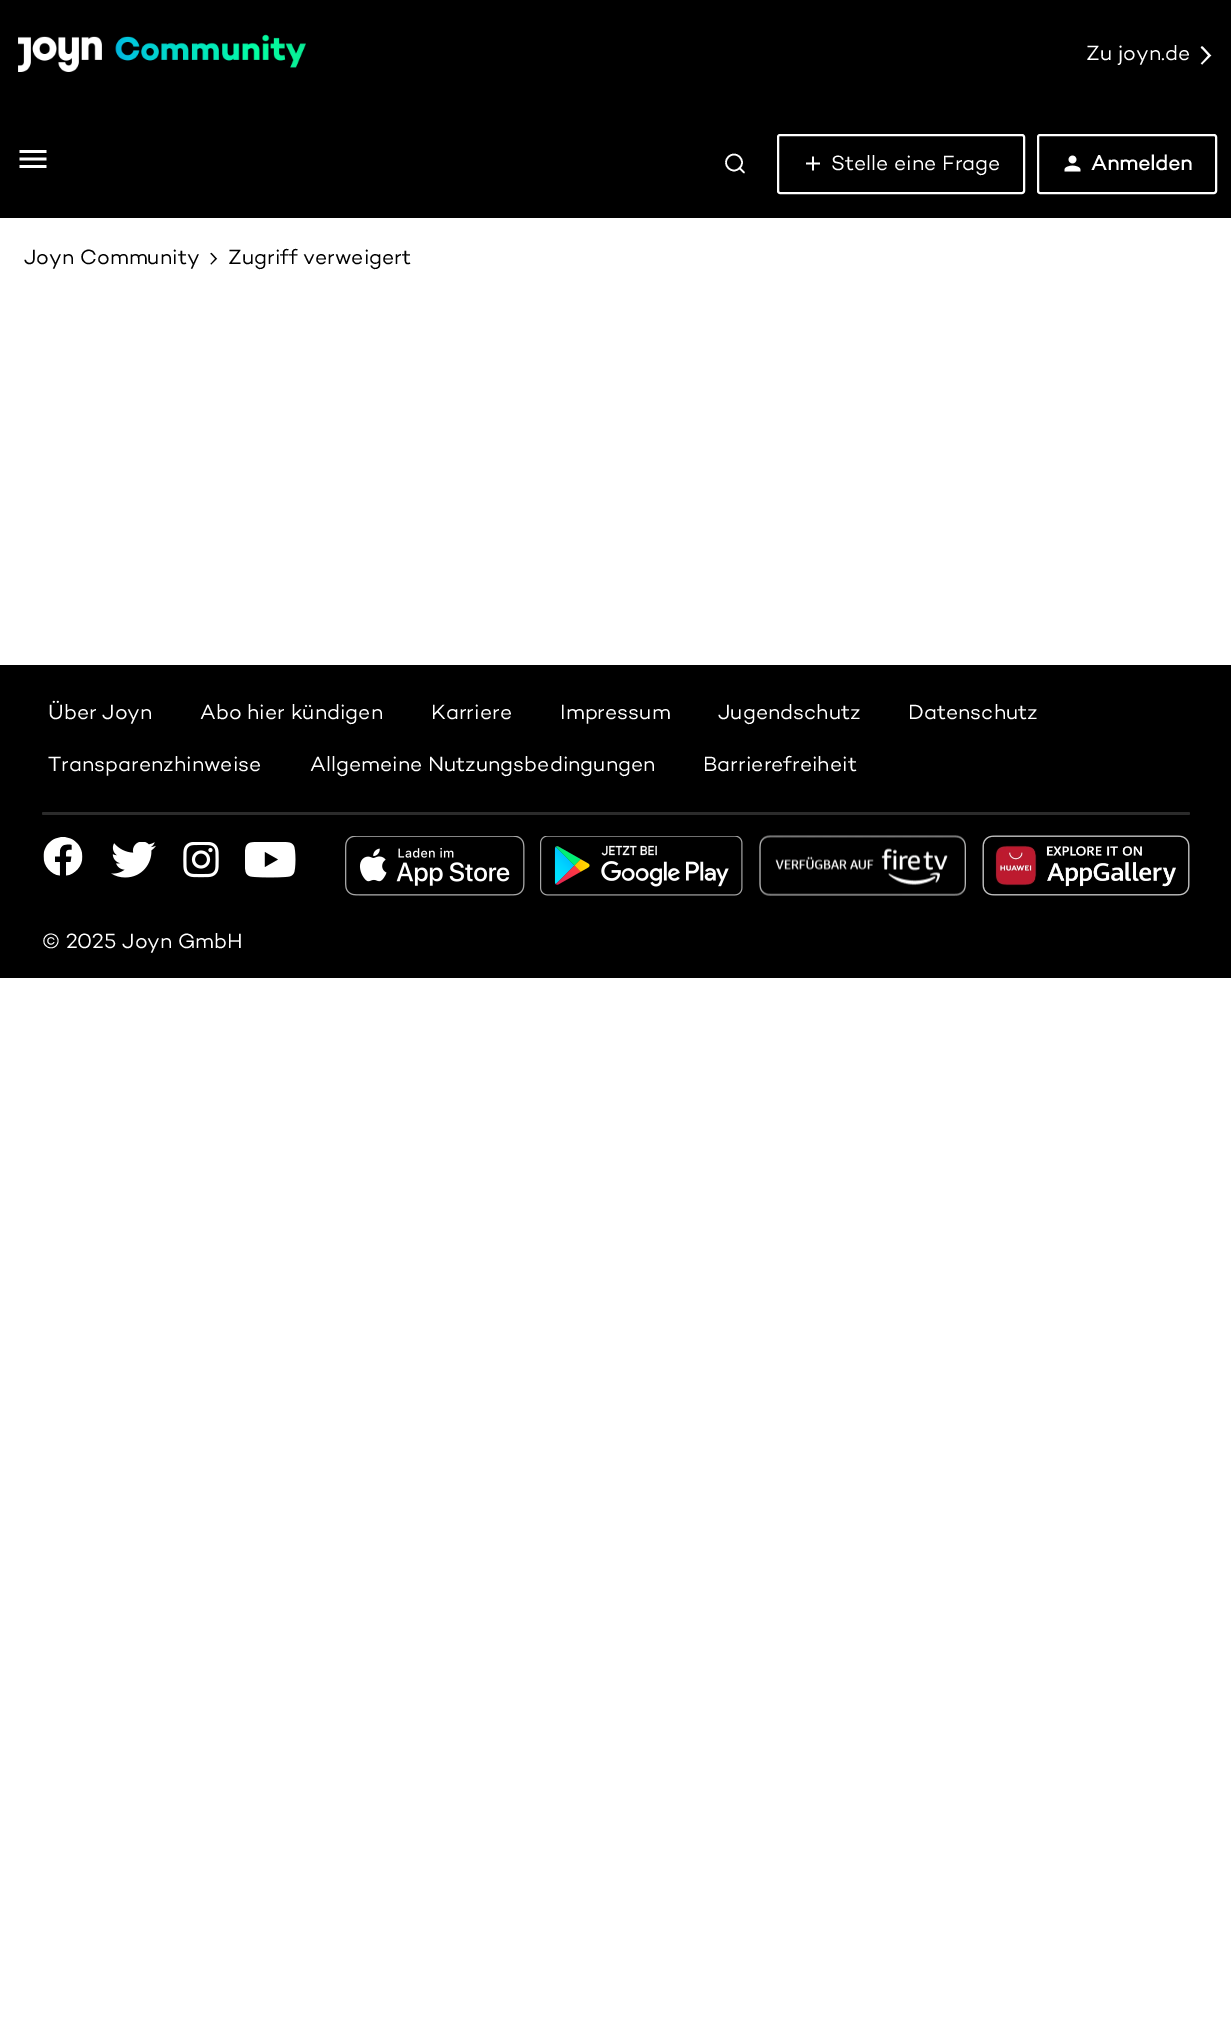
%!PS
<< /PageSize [1231 2019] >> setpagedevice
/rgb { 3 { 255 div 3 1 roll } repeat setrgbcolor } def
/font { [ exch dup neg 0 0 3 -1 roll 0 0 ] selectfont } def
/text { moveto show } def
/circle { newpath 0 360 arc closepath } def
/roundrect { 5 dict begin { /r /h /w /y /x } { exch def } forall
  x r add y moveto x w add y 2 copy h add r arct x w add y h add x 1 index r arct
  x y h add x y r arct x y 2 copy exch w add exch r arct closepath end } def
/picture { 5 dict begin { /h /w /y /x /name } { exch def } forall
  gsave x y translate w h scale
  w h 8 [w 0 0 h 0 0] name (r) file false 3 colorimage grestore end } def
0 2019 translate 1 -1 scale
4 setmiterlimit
255 255 255 rgb
0 0 1231 2019 rectfill
0 0 0 rgb
0 0 1231 218 rectfill
(img_01.rgb) 18 34 288 38 picture
(img_02.rgb) 1200 46 12 19 picture
(img_03.rgb) 19 150 28 18 picture
255 255 255 rgb
1.6 setlinewidth
734 162.5 8 circle stroke
1 setlinecap
739.5 168 moveto 4.5 4.5 rlineto stroke
2 setlinewidth
0 setlinecap
778 135 246 58 2 roundrect stroke
(img_04.rgb) 806 156 14 15 picture
1038 135 178 58 2 roundrect stroke
(img_05.rgb) 1064 155 17 17 picture
(img_06.rgb) 210 252 8 13 picture
0 0 0 rgb
0 665 1231 313 rectfill
43 43 43 rgb
42 812 1148 3 1.5 roundrect fill
(img_07.rgb) 43 837 40 39 picture
(img_08.rgb) 111 842 45 36 picture
(img_09.rgb) 183 842 36 36 picture
(img_10.rgb) 245 842 51 36 picture
(img_11.rgb) 345 836 180 60 picture
(img_12.rgb) 540 836 203 60 picture
(img_13.rgb) 759 835 207 61 picture
(img_14.rgb) 982 835 208 61 picture
/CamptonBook-Regular 21 font
255 255 255 rgb
(Zu joyn.de) 1086 60 text
(Stelle eine Frage) 831 170 text
/CamptonBook-Bold 21 font
(Anmelden) 1091 170 text
/CamptonBook-Regular 21 font
0 0 0 rgb
(Joyn Community) 24 264 text
(Zugriff verweigert) 228 264 text
255 255 255 rgb
(Über Joyn) 48 719 text
(Abo hier kündigen) 200 719 text
(Karriere) 431 719 text
(Impressum) 560 719 text
(Jugendschutz) 718 719 text
(Datenschutz) 908 719 text
(Transparenzhinweise) 48 771 text
(Allgemeine Nutzungsbedingungen) 310 771 text
(Barrierefreiheit) 703 771 text
(© 2025 Joyn GmbH) 42 948 text
showpage
